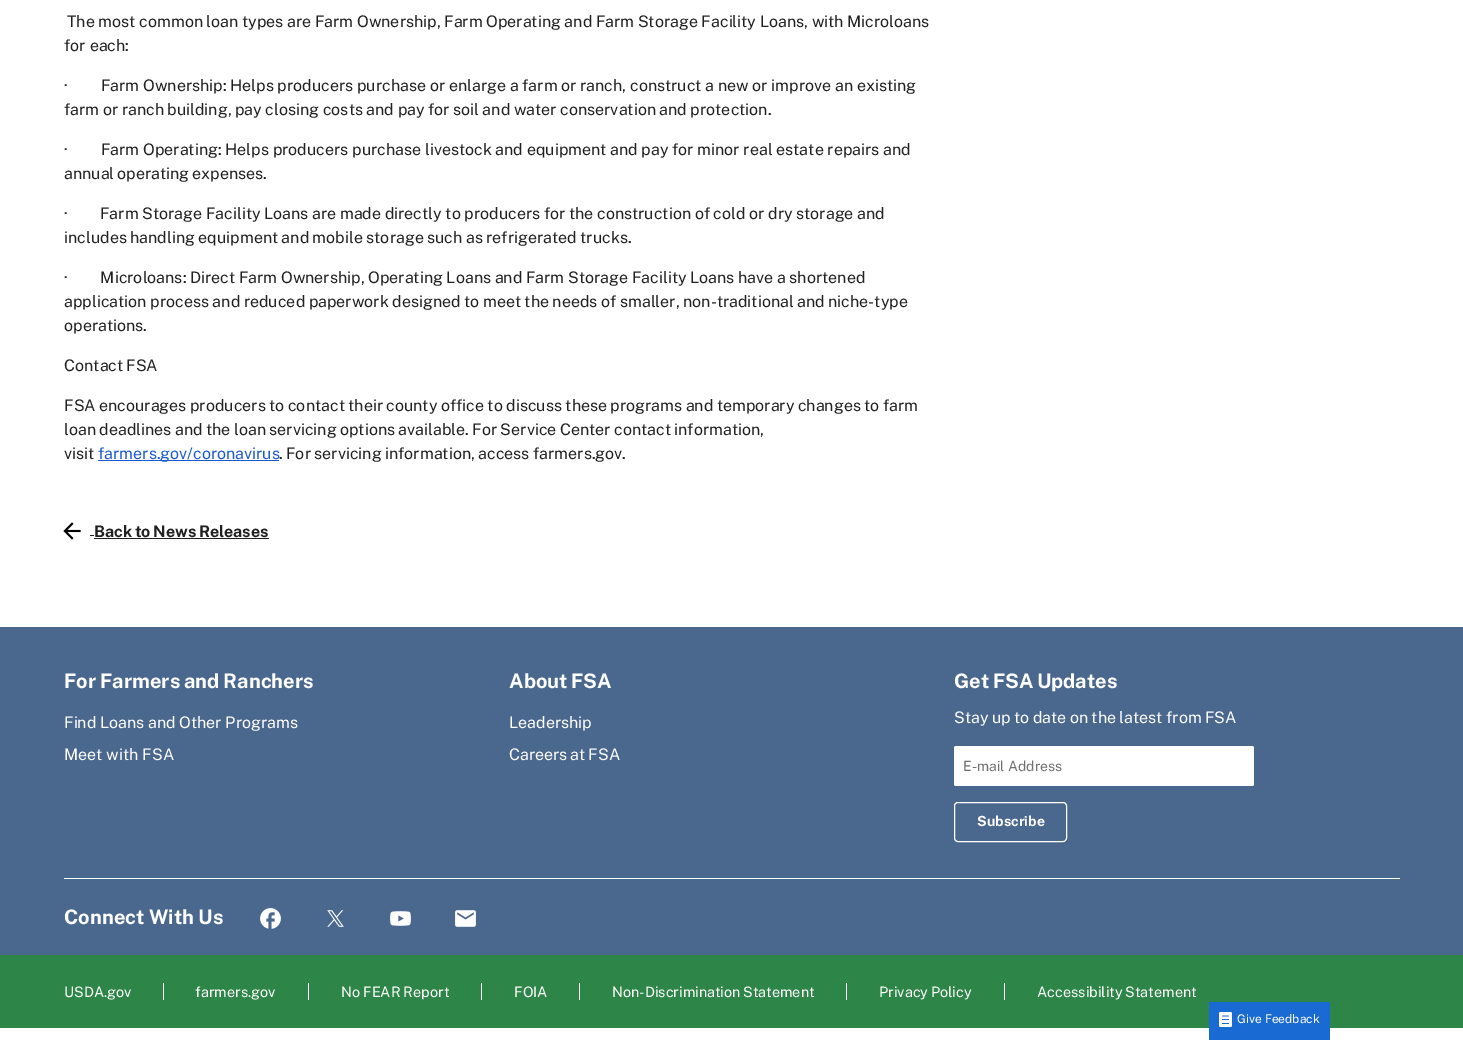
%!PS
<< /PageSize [1463 1040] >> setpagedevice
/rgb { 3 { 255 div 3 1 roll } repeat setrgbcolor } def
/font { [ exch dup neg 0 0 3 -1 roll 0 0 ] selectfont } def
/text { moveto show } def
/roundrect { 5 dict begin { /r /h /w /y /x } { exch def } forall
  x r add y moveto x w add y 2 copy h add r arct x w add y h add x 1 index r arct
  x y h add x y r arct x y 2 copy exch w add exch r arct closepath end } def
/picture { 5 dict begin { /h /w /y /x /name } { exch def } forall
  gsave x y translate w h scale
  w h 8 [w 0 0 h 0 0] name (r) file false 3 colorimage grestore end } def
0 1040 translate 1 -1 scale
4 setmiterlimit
255 255 255 rgb
0 0 1463 1040 rectfill
26 90 211 rgb
98 460 181 1 rectfill
(img_01.rgb) 63 522 18 18 picture
33 33 33 rgb
90 535 4 1 rectfill
94 538 175 1 rectfill
74 103 141 rgb
0 627 1463 328 rectfill
255 255 255 rgb
954 746 300 40 2 roundrect fill
954.5 802.5 112 39 3.5 roundrect stroke
64 878 1336 1 rectfill
(img_02.rgb) 260 908 21 21 picture
(img_03.rgb) 327 910 17 17 picture
(img_04.rgb) 390 911 21 15 picture
(img_05.rgb) 455 910 21 17 picture
45 134 71 rgb
0 955 1463 73 rectfill
255 255 255 rgb
163 983 1 17 rectfill
308 983 1 17 rectfill
481 983 1 17 rectfill
579 983 1 17 rectfill
846 983 1 17 rectfill
1004 983 1 17 rectfill
26 106 211 rgb
1209 1002 121 38 rectfill
(img_06.rgb) 1219 1012 13 15 picture
/PublicSans-Regular 16 font
33 33 33 rgb
67 27 moveto -0.3 0 32 (The most common loan types are Farm Ownership, Farm Operating and Farm Storage Facility Loans, with Microloans) widthshow
(for each:) 64 51 text
64 91 moveto -0.2 0 32 (·         Farm Ownership: Helps producers purchase or enlarge a farm or ranch, construct a new or improve an existing) widthshow
64 115 moveto -0.4 0 32 (farm or ranch building, pay closing costs and pay for soil and water conservation and protection.) widthshow
64 155 moveto -0.2 0 32 (·         Farm Operating: Helps producers purchase livestock and equipment and pay for minor real estate repairs and) widthshow
64 179 moveto -1 0 32 (annual operating expenses.) widthshow
64 219 moveto -0.3 0 32 (·         Farm Storage Facility Loans are made directly to producers for the construction of cold or dry storage and) widthshow
64 243 moveto -0.5 0 32 (includes handling equipment and mobile storage such as refrigerated trucks.) widthshow
64 283 moveto -0.25 0 32 (·         Microloans: Direct Farm Ownership, Operating Loans and Farm Storage Facility Loans have a shortened) widthshow
64 307 moveto -0.4 0 32 (application process and reduced paperwork designed to meet the needs of smaller, non-traditional and niche-type) widthshow
(operations.) 64 331 text
64 371 moveto -1 0 32 (Contact FSA) widthshow
64 411 moveto -0.5 0 32 (FSA encourages producers to contact their county office to discuss these programs and temporary changes to farm) widthshow
64 435 moveto -0.5 0 32 (loan deadlines and the loan servicing options available. For Service Center contact information,) widthshow
(visit) 64 459 text
26 90 211 rgb
(farmers.gov/coronavirus) 98 459 text
33 33 33 rgb
279 459 moveto -0.5 0 32 (. For servicing information, access farmers.gov.) widthshow
/PublicSans-Bold 16 font
94 537 moveto -1 0 32 (Back to News Releases) widthshow
/PublicSans-Bold 20 font
255 255 255 rgb
64 688 moveto -0.5 0 32 (For Farmers and Ranchers) widthshow
/PublicSans-Regular 16 font
64 728 moveto -0.25 0 32 (Find Loans and Other Programs) widthshow
(Meet with FSA) 64 760 text
/PublicSans-Bold 20 font
509 688 moveto -1 0 32 (About FSA) widthshow
/PublicSans-Regular 16 font
(Leadership) 509 728 text
509 760 moveto -1 0 32 (Careers at FSA) widthshow
/PublicSans-Bold 20 font
954 688 moveto -1 0 32 (Get FSA Updates) widthshow
/PublicSans-Regular 16 font
954 723 moveto -0.5 0 32 (Stay up to date on the latest from FSA) widthshow
/PublicSans-Regular 14 font
112 112 112 rgb
(E-mail Address) 963 771 text
/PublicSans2-Bold 14 font
255 255 255 rgb
(Subscribe) 977 826 text
/PublicSans-Bold 20 font
(Connect With Us) 64 924 text
/PublicSans-Regular 14.4 font
(USDA.gov) 64 997 text
(farmers.gov) 195 997 text
341 997 moveto -0.5 0 32 (No FEAR Report) widthshow
(FOIA) 514 997 text
612 997 moveto -1 0 32 (Non-Discrimination Statement) widthshow
879 997 moveto -1 0 32 (Privacy Policy) widthshow
1037 997 moveto -1 0 32 (Accessibility Statement) widthshow
/PublicSans-Regular 12 font
(Give Feedback) 1237 1023 text
showpage
